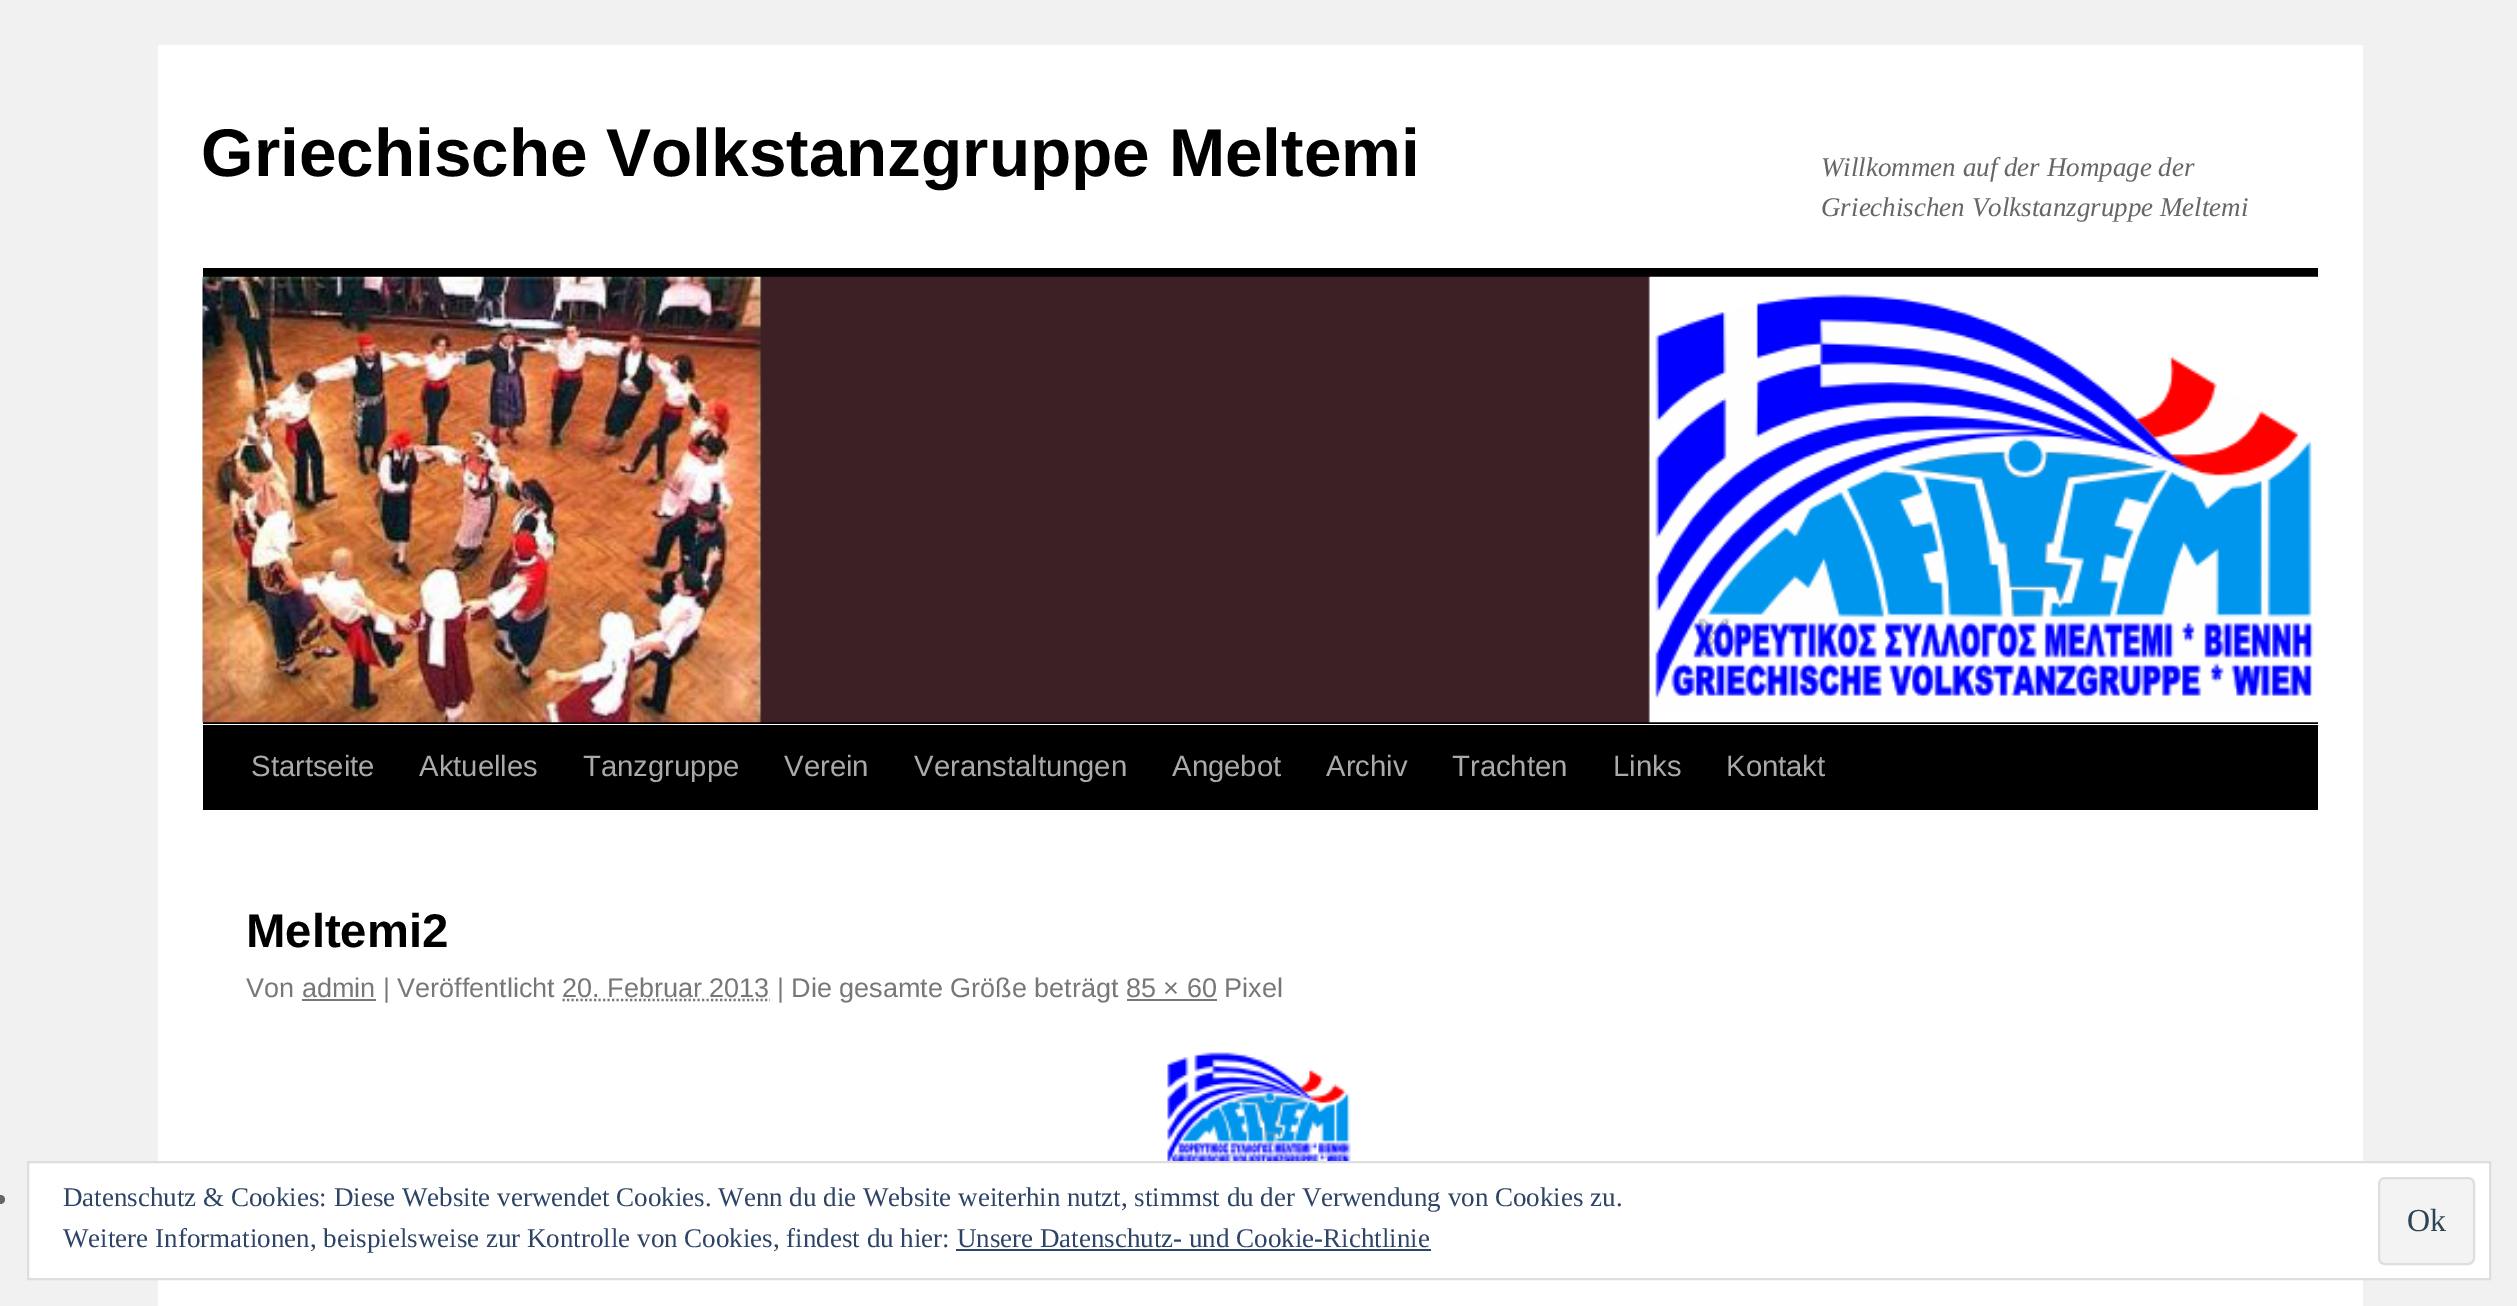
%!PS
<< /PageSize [2517 1306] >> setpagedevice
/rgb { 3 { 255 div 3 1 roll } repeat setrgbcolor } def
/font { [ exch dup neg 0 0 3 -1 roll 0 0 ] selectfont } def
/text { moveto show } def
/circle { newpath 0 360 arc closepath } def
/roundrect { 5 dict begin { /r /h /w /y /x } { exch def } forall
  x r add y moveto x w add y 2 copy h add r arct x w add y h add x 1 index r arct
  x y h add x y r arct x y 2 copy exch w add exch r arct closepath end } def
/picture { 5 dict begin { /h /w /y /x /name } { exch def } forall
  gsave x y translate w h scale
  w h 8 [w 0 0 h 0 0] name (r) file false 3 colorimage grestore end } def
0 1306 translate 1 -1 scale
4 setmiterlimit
241 241 241 rgb
0 0 2517 1306 rectfill
255 255 255 rgb
158 45 2205 1261 rectfill
0 0 0 rgb
203 268 2115 9 rectfill
203 722 2115 2 rectfill
(img_01.rgb) 202 276 2116 447 picture
203 725 2115 85 rectfill
119 119 119 rgb
302 999 74 2 rectfill
2.2 setlinewidth
[2.25 2.25] 0 setdash
562.5 1000 moveto 207.5 0 rlineto stroke
1127 999 90 2 rectfill
(img_02.rgb) 1167 1052 184 109 picture
102 102 102 rgb
0.5 1199.5 4.5 circle fill
255 255 255 rgb
28 1162 moveto 2462 0 rlineto 0 117 rlineto -2462 0 rlineto closepath gsave fill grestore
222 222 222 rgb
2 setlinewidth
[] 0 setdash
stroke
243 243 243 rgb
2379 1178 95 86 6 roundrect gsave fill grestore
222 222 222 rgb
stroke
46 68 103 rgb
956 1249 475 2 rectfill
/LiberationSans-Bold 67.5 font
0 0 0 rgb
(Griechische Volkstanzgruppe Meltemi) 201 176 text
/LiberationSerif-Italic 27 font
102 102 102 rgb
(Willkommen auf der Hompage der) 1821 176 text
(Griechischen Volkstanzgruppe Meltemi) 1821 216 text
/LiberationSans-Regular 29.25 font
170 170 170 rgb
(Startseite) 251 776 text
(Aktuelles) 419 776 text
(Tanzgruppe) 583 776 text
(Verein) 784 776 text
(Veranstaltungen) 914 776 text
(Angebot) 1172 776 text
(Archiv) 1326 776 text
(Trachten) 1452 776 text
(Links) 1613 776 text
(Kontakt) 1726 776 text
/LiberationSans-Bold 47.25 font
0 0 0 rgb
(Meltemi2) 246 947 text
/LiberationSans-Regular 27 font
119 119 119 rgb
(Von admin | Veröffentlicht 20. Februar 2013 | Die gesamte Größe beträgt 85 × 60 Pixel) 246 997 text
/LiberationSerif-Regular 27 font
46 68 103 rgb
(Datenschutz & Cookies: Diese Website verwendet Cookies. Wenn du die Website weiterhin nutzt, stimmst du der Verwendung von Cookies zu.) 63 1206 text
/LiberationSerif-Regular 32 font
46 68 83 rgb
(Ok) 2407 1231 text
/LiberationSerif-Regular 27 font
46 68 103 rgb
(Weitere Informationen, beispielsweise zur Kontrolle von Cookies, findest du hier: Unsere Datenschutz- und Cookie-Richtlinie) 63 1247 text
showpage
